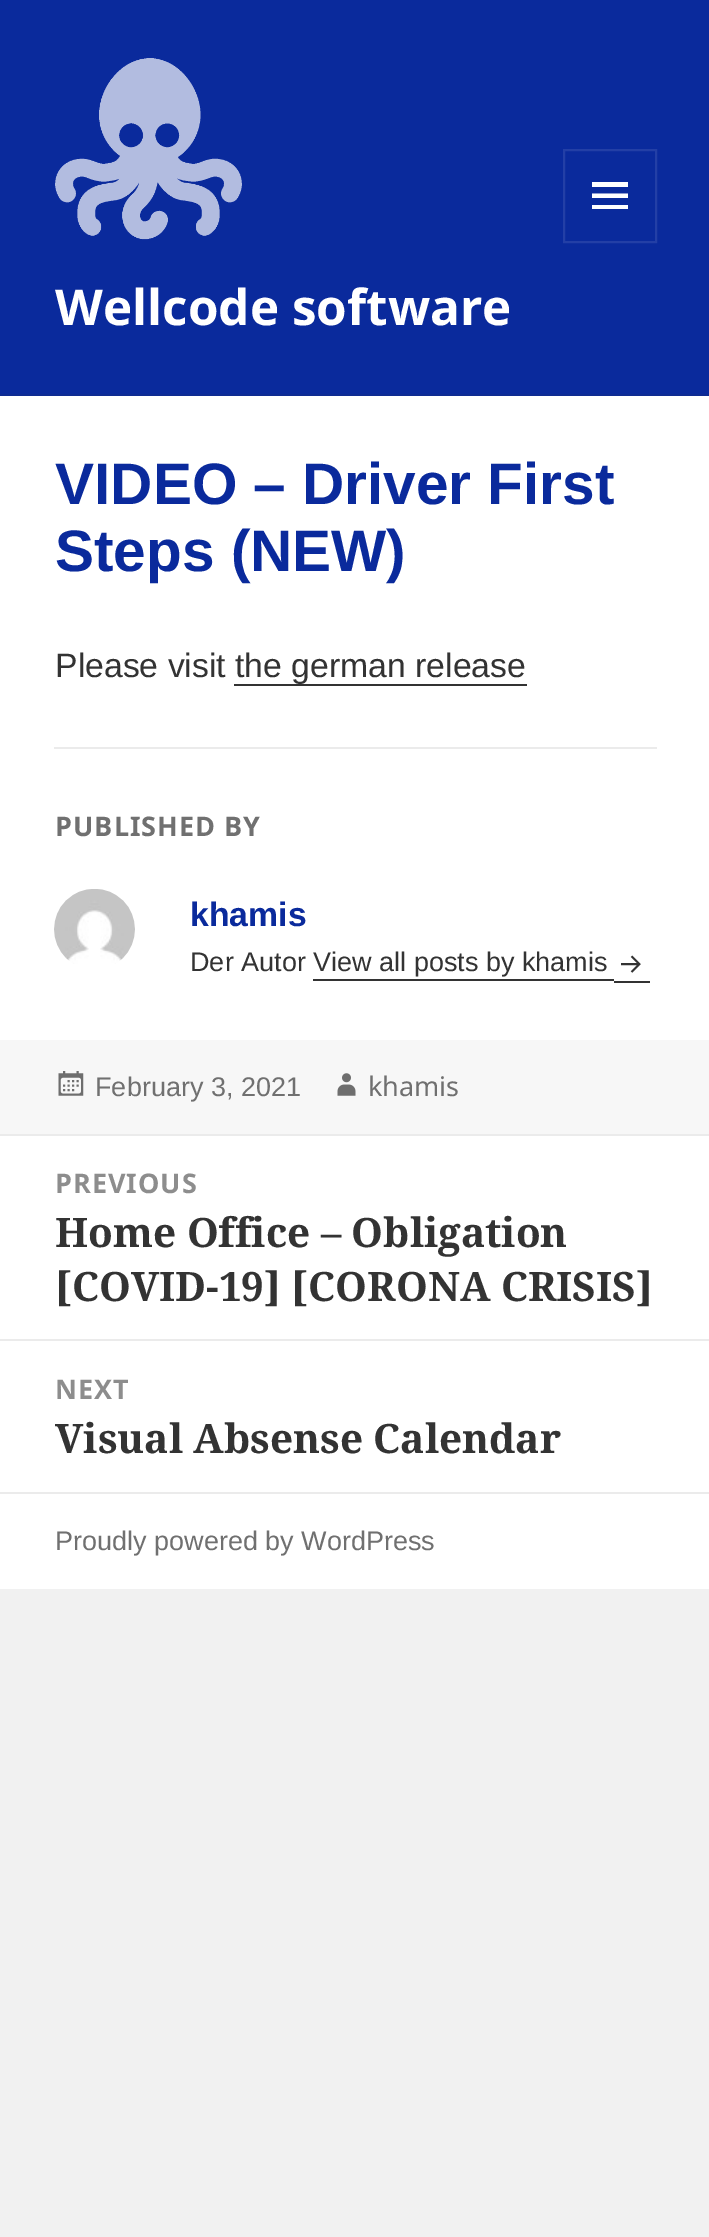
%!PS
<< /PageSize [709 2237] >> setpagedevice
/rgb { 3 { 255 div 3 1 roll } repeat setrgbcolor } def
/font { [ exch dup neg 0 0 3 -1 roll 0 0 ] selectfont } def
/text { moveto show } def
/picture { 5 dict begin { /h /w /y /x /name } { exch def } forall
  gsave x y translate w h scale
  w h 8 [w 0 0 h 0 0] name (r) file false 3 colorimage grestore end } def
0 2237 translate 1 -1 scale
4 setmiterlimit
241 241 241 rgb
0 0 709 2237 rectfill
10 42 156 rgb
0 0 709 394 rectfill
14 43 146 rgb
0 394 709 2 rectfill
(img_01.rgb) 55 58 187 182 picture
35 63 166 rgb
2 setlinewidth
564 150 92 92 rectstroke
255 255 255 rgb
592 209 moveto 0 -4 rlineto 36 0 rlineto 0 4 rlineto closepath 592 182 moveto 36 0 rlineto 0 5 rlineto -36 0 rlineto closepath 592 198 moveto 0 -4.5 rlineto 36 0 rlineto 0 4.5 rlineto closepath fill
0 396 709 644 rectfill
51 51 51 rgb
234 684 293 2 rectfill
235 235 235 rgb
54 747 603 2 rectfill
(img_02.rgb) 54 889 81 75 picture
51 51 51 rgb
313 979 301 2 rectfill
614 981 36 2 rectfill
(img_03.rgb) 621 955 20 18 picture
247 247 247 rgb
0 1040 709 94 rectfill
(img_04.rgb) 58 1071 26 25 picture
(img_05.rgb) 337 1073 19 23 picture
255 255 255 rgb
0 1136 709 356 rectfill
235 235 235 rgb
0 1134 709 2 rectfill
0 1339 709 2 rectfill
255 255 255 rgb
0 1494 709 95 rectfill
235 235 235 rgb
0 1492 709 2 rectfill
/NotoSans-Bold 49.5 font
255 255 255 rgb
(Wellcode software) 55 325 text
/LiberationSans-Bold 58.5 font
10 42 156 rgb
(VIDEO – Driver First) 55 504 text
(Steps \(NEW\)) 55 571 text
/LiberationSans-Regular 33.75 font
51 51 51 rgb
(Please visit the german release) 55 677 text
/NotoSans-Bold 27 font
112 112 112 rgb
55 836 moveto 1 0 (PUBLISHED BY) ashow
/LiberationSans-Bold 33.75 font
10 42 156 rgb
(khamis) 190 926 text
/LiberationSans-Regular 27 font
51 51 51 rgb
(Der Autor View all posts by khamis) 190 971 text
112 112 112 rgb
(February 3, 2021) 95 1096 text
/NotoSans-Regular 27 font
(khamis) 368 1096 text
/NotoSans-Bold 27 font
141 141 141 rgb
55 1193 moveto 1 0 (PREVIOUS) ashow
/NotoSerif-Bold 40.5 font
51 51 51 rgb
(Home Office – Obligation) 55 1247 text
([COVID-19] [CORONA CRISIS]) 55 1301 text
/NotoSans-Bold 27 font
141 141 141 rgb
55 1399 moveto 1 0 (NEXT) ashow
/NotoSerif-Bold 40.5 font
51 51 51 rgb
(Visual Absense Calendar) 55 1453 text
/LiberationSans-Regular 27 font
112 112 112 rgb
(Proudly powered by WordPress) 55 1550 text
showpage
